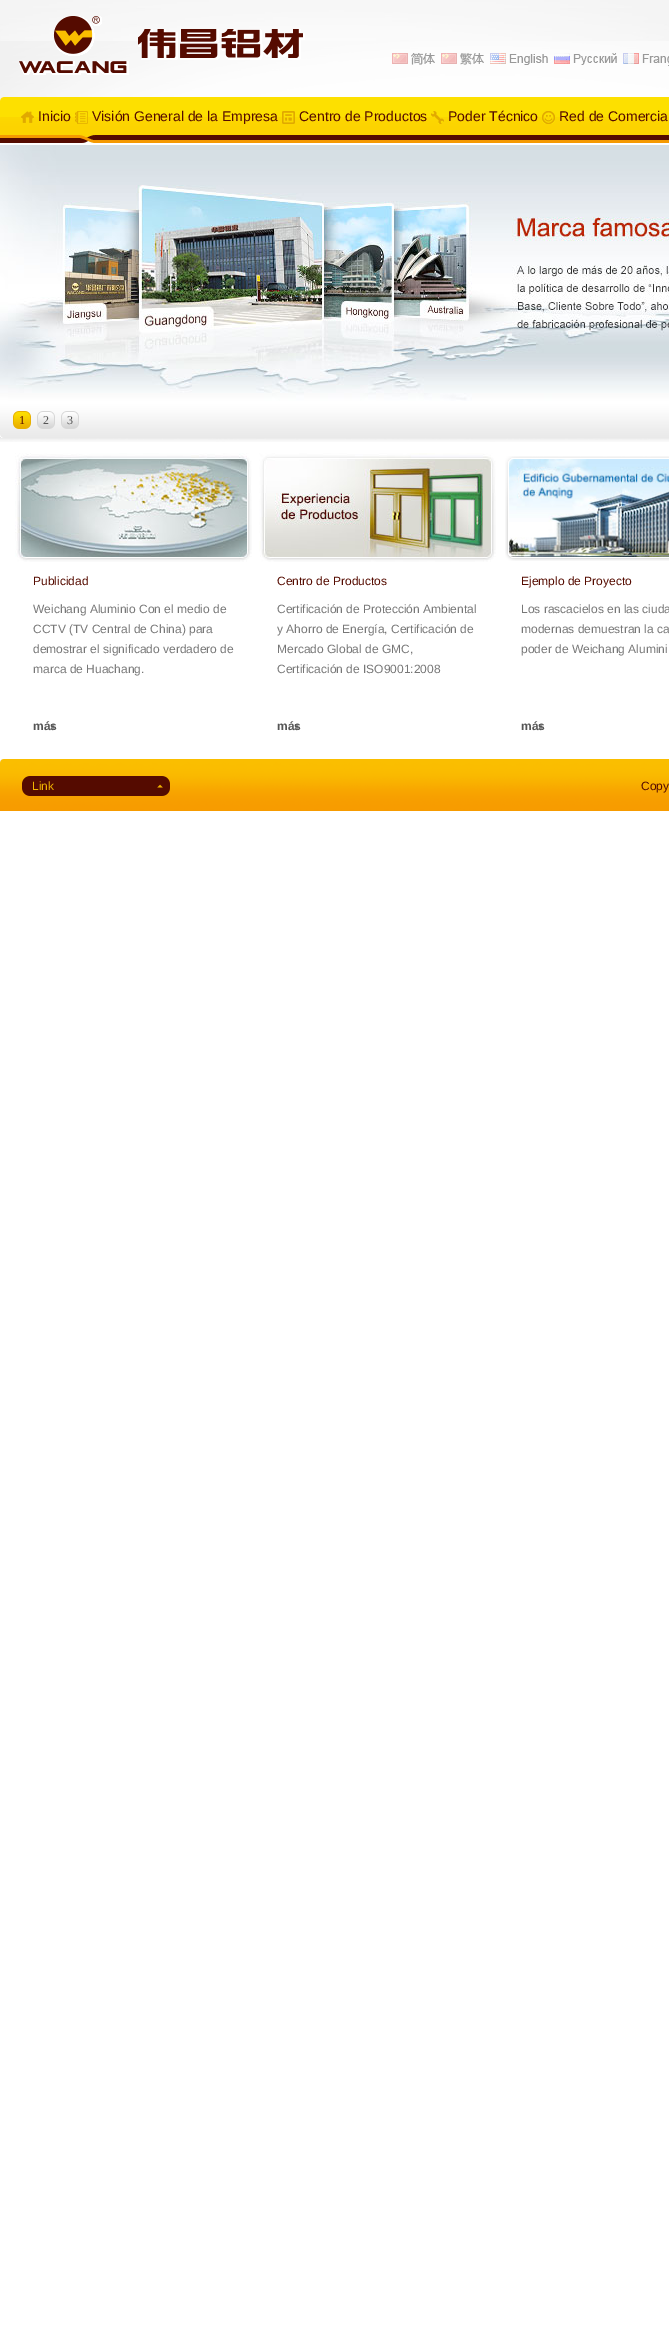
%!PS
<< /PageSize [669 2349] >> setpagedevice
/rgb { 3 { 255 div 3 1 roll } repeat setrgbcolor } def
/font { [ exch dup neg 0 0 3 -1 roll 0 0 ] selectfont } def
/text { moveto show } def
/picture { 5 dict begin { /h /w /y /x /name } { exch def } forall
  gsave x y translate w h scale
  w h 8 [w 0 0 h 0 0] name (r) file false 3 colorimage grestore end } def
0 2349 translate 1 -1 scale
4 setmiterlimit
255 255 255 rgb
0 0 669 2349 rectfill
(img_01.rgb) 0 0 669 442 picture
(img_02.rgb) 0 41 669 102 picture
(img_03.rgb) 19 16 286 59 picture
(img_04.rgb) 392 53 43 12 picture
(img_05.rgb) 441 53 43 12 picture
(img_06.rgb) 490 53 58 12 picture
(img_07.rgb) 554 53 63 12 picture
(img_08.rgb) 623 53 46 13 picture
(img_09.rgb) 21 111 13 12 picture
(img_10.rgb) 75 111 13 13 picture
(img_11.rgb) 282 111 13 13 picture
(img_12.rgb) 431 111 13 13 picture
(img_13.rgb) 542 111 13 13 picture
0 401 669 1 rectfill
(img_14.rgb) 0 145 669 256 picture
(img_15.rgb) 0 402 669 36 picture
(img_16.rgb) 13 411 18 18 picture
(img_17.rgb) 37 411 18 18 picture
(img_17.rgb) 61 411 18 18 picture
(img_18.rgb) 15 453 237 109 picture
153 153 153 rgb
51 724 3 5 rectfill
(img_19.rgb) 259 453 237 109 picture
295 724 3 5 rectfill
(img_21.rgb) 509 459 160 98 picture
(img_20.rgb) 505 456 164 105 picture
539 724 3 5 rectfill
(img_22.rgb) 0 759 669 52 picture
(img_23.rgb) 22 776 148 20 picture
/LiberationSans-Regular 14 font
85 11 0 rgb
(Inicio) 38 121 text
(Visión General de la Empresa) 92 121 text
(Centro de Productos) 299 121 text
(Poder Técnico) 448 121 text
(Red de Comercia) 559 121 text
/LiberationSerif-Regular 12 font
(1) 19 424 text
85 85 85 rgb
(2) 43 424 text
(3) 67 424 text
/LiberationSans-Regular 12 font
85 11 0 rgb
(Publicidad) 33 585 text
119 119 119 rgb
(Weichang Aluminio Con el medio de) 33 613 text
(CCTV \(TV Central de China\) para) 33 633 text
(demostrar el significado verdadero de) 33 653 text
(marca de Huachang.) 33 673 text
/LiberationSans-Bold 12 font
85 85 85 rgb
(más) 33 730 text
/LiberationSans-Regular 12 font
85 11 0 rgb
(Centro de Productos) 277 585 text
119 119 119 rgb
(Certificación de Protección Ambiental) 277 613 text
(y Ahorro de Energía, Certificación de) 277 633 text
(Mercado Global de GMC,) 277 653 text
(Certificación de ISO9001:2008) 277 673 text
/LiberationSans-Bold 12 font
85 85 85 rgb
(más) 277 730 text
/LiberationSans-Regular 12 font
85 11 0 rgb
(Ejemplo de Proyecto) 521 585 text
119 119 119 rgb
(Los rascacielos en las ciuda) 521 613 text
(modernas demuestran la ca) 521 633 text
(poder de Weichang Alumini) 521 653 text
/LiberationSans-Bold 12 font
85 85 85 rgb
(más) 521 730 text
/LiberationSans-Regular 12 font
241 180 0 rgb
(Link) 32 790 text
85 11 0 rgb
(Copy) 641 790 text
showpage
